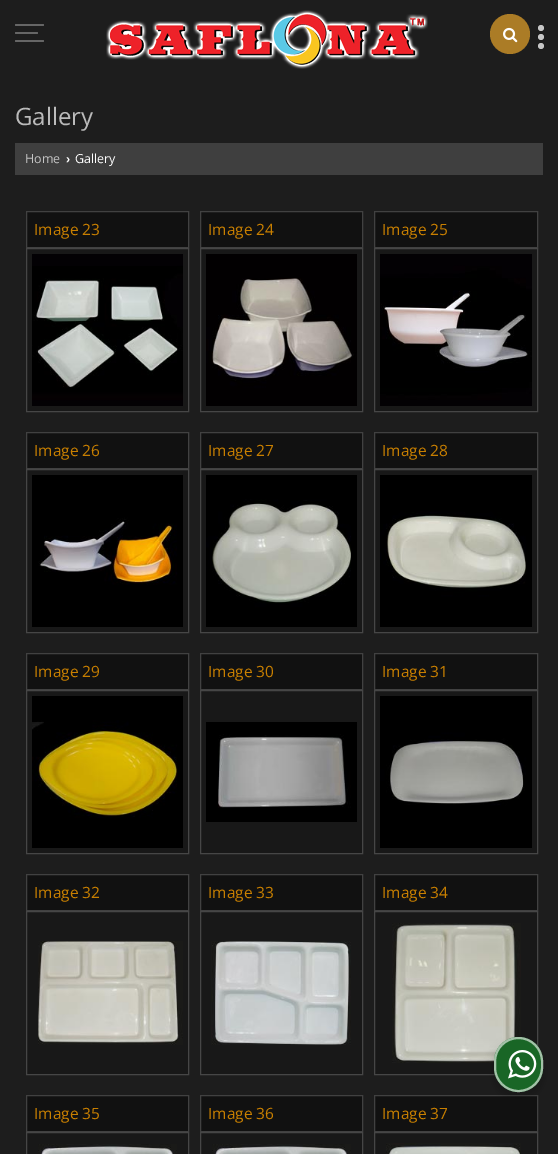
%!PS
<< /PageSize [558 1154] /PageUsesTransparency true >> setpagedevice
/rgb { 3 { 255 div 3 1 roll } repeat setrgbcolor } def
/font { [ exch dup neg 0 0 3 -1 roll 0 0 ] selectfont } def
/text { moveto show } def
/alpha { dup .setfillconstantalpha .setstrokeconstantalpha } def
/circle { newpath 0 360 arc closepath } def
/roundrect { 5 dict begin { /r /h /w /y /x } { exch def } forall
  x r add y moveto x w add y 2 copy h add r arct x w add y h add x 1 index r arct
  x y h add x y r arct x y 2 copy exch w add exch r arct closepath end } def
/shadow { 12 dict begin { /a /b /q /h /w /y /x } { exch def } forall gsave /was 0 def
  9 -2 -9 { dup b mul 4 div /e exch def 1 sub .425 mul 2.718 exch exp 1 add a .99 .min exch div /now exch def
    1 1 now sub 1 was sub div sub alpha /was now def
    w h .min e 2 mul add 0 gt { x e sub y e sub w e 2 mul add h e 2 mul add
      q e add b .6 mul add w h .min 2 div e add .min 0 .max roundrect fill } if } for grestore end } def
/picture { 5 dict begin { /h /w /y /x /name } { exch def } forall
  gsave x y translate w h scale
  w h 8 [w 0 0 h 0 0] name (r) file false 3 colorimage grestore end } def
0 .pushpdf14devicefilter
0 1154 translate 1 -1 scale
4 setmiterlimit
29 29 29 rgb
0 0 558 1154 rectfill
102 102 102 rgb
15 24 29 2 1 roundrect fill
15 32 23 2 1 roundrect fill
15 40 29 2 1 roundrect fill
(img_01.rgb) 106 10 322 59 picture
171 124 38 rgb
510 34 20 circle fill
(img_02.rgb) 503 27 15 16 picture
199 199 199 rgb
541 37 3 circle fill
541 28 3 circle fill
541 46 3 circle fill
63 63 63 rgb
15 143 528 32 rectfill
17 17 17 rgb
26.5 211.5 moveto 162 0 rlineto 0 36 rlineto -162 0 rlineto closepath gsave fill grestore
65 65 65 rgb
stroke
24 24 24 rgb
26.5 248.5 moveto 162 0 rlineto 0 163 rlineto -162 0 rlineto closepath gsave fill grestore
70 70 70 rgb
stroke
(img_03.rgb) 32 254 151 152 picture
17 17 17 rgb
200.5 211.5 moveto 162 0 rlineto 0 36 rlineto -162 0 rlineto closepath gsave fill grestore
65 65 65 rgb
stroke
24 24 24 rgb
200.5 248.5 moveto 162 0 rlineto 0 163 rlineto -162 0 rlineto closepath gsave fill grestore
70 70 70 rgb
stroke
(img_04.rgb) 206 254 151 152 picture
17 17 17 rgb
374.5 211.5 moveto 163 0 rlineto 0 36 rlineto -163 0 rlineto closepath gsave fill grestore
65 65 65 rgb
stroke
24 24 24 rgb
374.5 248.5 moveto 163 0 rlineto 0 163 rlineto -163 0 rlineto closepath gsave fill grestore
70 70 70 rgb
stroke
(img_05.rgb) 380 254 152 152 picture
17 17 17 rgb
26.5 432.5 moveto 162 0 rlineto 0 36 rlineto -162 0 rlineto closepath gsave fill grestore
65 65 65 rgb
stroke
24 24 24 rgb
26.5 469.5 moveto 162 0 rlineto 0 163 rlineto -162 0 rlineto closepath gsave fill grestore
70 70 70 rgb
stroke
(img_06.rgb) 32 475 151 152 picture
17 17 17 rgb
200.5 432.5 moveto 162 0 rlineto 0 36 rlineto -162 0 rlineto closepath gsave fill grestore
65 65 65 rgb
stroke
24 24 24 rgb
200.5 469.5 moveto 162 0 rlineto 0 163 rlineto -162 0 rlineto closepath gsave fill grestore
70 70 70 rgb
stroke
(img_07.rgb) 206 475 151 152 picture
17 17 17 rgb
374.5 432.5 moveto 163 0 rlineto 0 36 rlineto -163 0 rlineto closepath gsave fill grestore
65 65 65 rgb
stroke
24 24 24 rgb
374.5 469.5 moveto 163 0 rlineto 0 163 rlineto -163 0 rlineto closepath gsave fill grestore
70 70 70 rgb
stroke
(img_08.rgb) 380 475 152 152 picture
17 17 17 rgb
26.5 653.5 moveto 162 0 rlineto 0 36 rlineto -162 0 rlineto closepath gsave fill grestore
65 65 65 rgb
stroke
24 24 24 rgb
26.5 690.5 moveto 162 0 rlineto 0 163 rlineto -162 0 rlineto closepath gsave fill grestore
70 70 70 rgb
stroke
(img_09.rgb) 32 696 151 152 picture
17 17 17 rgb
200.5 653.5 moveto 162 0 rlineto 0 36 rlineto -162 0 rlineto closepath gsave fill grestore
65 65 65 rgb
stroke
24 24 24 rgb
200.5 690.5 moveto 162 0 rlineto 0 163 rlineto -162 0 rlineto closepath gsave fill grestore
70 70 70 rgb
stroke
(img_10.rgb) 206 722 151 100 picture
17 17 17 rgb
374.5 653.5 moveto 163 0 rlineto 0 36 rlineto -163 0 rlineto closepath gsave fill grestore
65 65 65 rgb
stroke
24 24 24 rgb
374.5 690.5 moveto 163 0 rlineto 0 163 rlineto -163 0 rlineto closepath gsave fill grestore
70 70 70 rgb
stroke
(img_11.rgb) 380 696 152 152 picture
17 17 17 rgb
26.5 874.5 moveto 162 0 rlineto 0 36 rlineto -162 0 rlineto closepath gsave fill grestore
65 65 65 rgb
stroke
24 24 24 rgb
26.5 911.5 moveto 162 0 rlineto 0 163 rlineto -162 0 rlineto closepath gsave fill grestore
70 70 70 rgb
stroke
(img_12.rgb) 38 941 145 104 picture
17 17 17 rgb
200.5 874.5 moveto 162 0 rlineto 0 36 rlineto -162 0 rlineto closepath gsave fill grestore
65 65 65 rgb
stroke
24 24 24 rgb
200.5 911.5 moveto 162 0 rlineto 0 163 rlineto -162 0 rlineto closepath gsave fill grestore
70 70 70 rgb
stroke
(img_13.rgb) 211 941 140 104 picture
17 17 17 rgb
374.5 874.5 moveto 163 0 rlineto 0 36 rlineto -163 0 rlineto closepath gsave fill grestore
65 65 65 rgb
stroke
24 24 24 rgb
374.5 911.5 moveto 163 0 rlineto 0 163 rlineto -163 0 rlineto closepath gsave fill grestore
70 70 70 rgb
stroke
(img_14.rgb) 392 923 129 140 picture
17 17 17 rgb
26.5 1095.5 moveto 162 0 rlineto 0 36 rlineto -162 0 rlineto closepath gsave fill grestore
65 65 65 rgb
stroke
24 24 24 rgb
26.5 1132.5 moveto 162 0 rlineto 0 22 rlineto -162 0 rlineto closepath gsave fill grestore
70 70 70 rgb
stroke
(img_15.rgb) 38 1144 139 10 picture
17 17 17 rgb
200.5 1095.5 moveto 162 0 rlineto 0 36 rlineto -162 0 rlineto closepath gsave fill grestore
65 65 65 rgb
stroke
24 24 24 rgb
200.5 1132.5 moveto 162 0 rlineto 0 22 rlineto -162 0 rlineto closepath gsave fill grestore
70 70 70 rgb
stroke
(img_15.rgb) 212 1144 139 10 picture
17 17 17 rgb
374.5 1095.5 moveto 163 0 rlineto 0 36 rlineto -163 0 rlineto closepath gsave fill grestore
65 65 65 rgb
stroke
24 24 24 rgb
374.5 1132.5 moveto 163 0 rlineto 0 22 rlineto -163 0 rlineto closepath gsave fill grestore
70 70 70 rgb
stroke
(img_16.rgb) 386 1143 135 11 picture
0 0 0 rgb
492 1041 53 59 26.5 4 0.14 shadow
25 102 38 rgb
494 1037 49 55 24.5 roundrect fill
0.6 alpha
255 255 255 rgb
2 setlinewidth
495 1038 47 53 23.5 roundrect stroke
1 alpha
(img_17.rgb) 508 1050 29 29 picture
/OpenSans-Regular 24 font
187 187 187 rgb
(Gallery) 15 125 text
/OpenSans-Regular 12.5 font
197 197 197 rgb
(Home) 25 163 text
/LiberationSans-Bold 12.5 font
255 255 255 rgb
(›) 66 163 text
/OpenSans-Regular 12.5 font
(Gallery) 75 163 text
/OpenSans-Regular 15.5 font
200 127 0 rgb
(Image 23) 34 235 text
(Image 24) 208 235 text
(Image 25) 382 235 text
(Image 26) 34 456 text
(Image 27) 208 456 text
(Image 28) 382 456 text
(Image 29) 34 677 text
(Image 30) 208 677 text
(Image 31) 382 677 text
(Image 32) 34 898 text
(Image 33) 208 898 text
(Image 34) 382 898 text
(Image 35) 34 1119 text
(Image 36) 208 1119 text
(Image 37) 382 1119 text
.poppdf14devicefilter showpage
